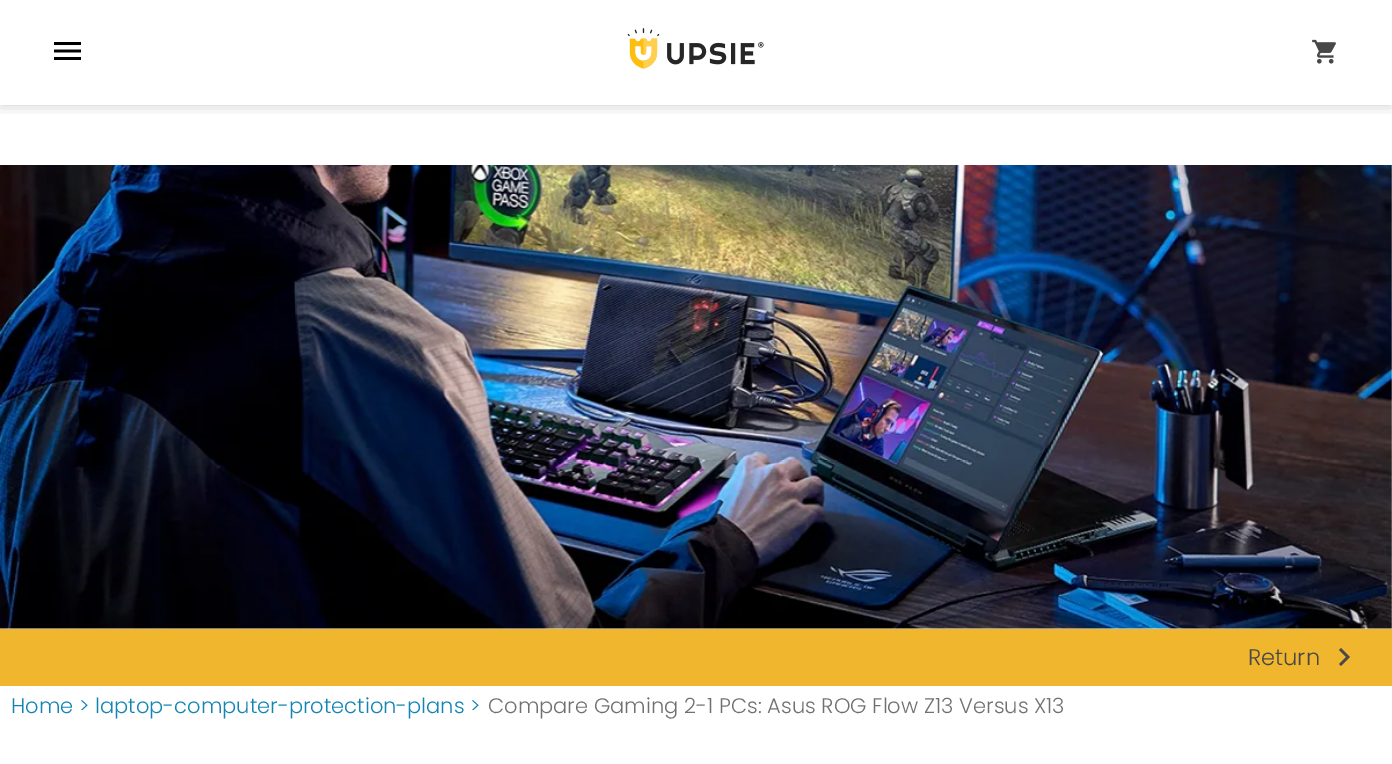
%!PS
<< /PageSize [1392 764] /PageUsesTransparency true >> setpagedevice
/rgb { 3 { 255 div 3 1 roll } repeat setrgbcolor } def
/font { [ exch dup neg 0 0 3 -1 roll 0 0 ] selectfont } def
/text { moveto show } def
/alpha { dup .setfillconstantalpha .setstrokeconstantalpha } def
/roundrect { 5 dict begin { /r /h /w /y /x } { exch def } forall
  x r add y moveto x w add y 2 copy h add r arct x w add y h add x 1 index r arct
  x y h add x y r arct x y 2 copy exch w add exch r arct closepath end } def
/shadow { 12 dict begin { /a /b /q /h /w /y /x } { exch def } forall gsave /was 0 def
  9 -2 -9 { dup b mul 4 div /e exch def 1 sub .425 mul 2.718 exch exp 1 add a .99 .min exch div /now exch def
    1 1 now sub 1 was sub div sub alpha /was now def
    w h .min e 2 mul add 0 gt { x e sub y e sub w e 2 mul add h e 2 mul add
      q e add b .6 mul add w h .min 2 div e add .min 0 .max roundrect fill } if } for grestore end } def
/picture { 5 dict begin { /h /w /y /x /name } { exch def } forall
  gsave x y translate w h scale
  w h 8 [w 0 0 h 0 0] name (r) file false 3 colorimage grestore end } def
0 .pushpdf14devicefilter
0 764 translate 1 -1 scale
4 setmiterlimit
255 255 255 rgb
0 0 1392 764 rectfill
gsave
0 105 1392 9 rectclip
0 0 0 rgb
0 -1 1392 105 0 7.5 0.24 shadow
grestore
(img_01.rgb) 54 42 27 18 picture
(img_02.rgb) 627 28 137 41 picture
(img_03.rgb) 1312 39 24 25 picture
(img_04.rgb) 0 165 1392 464 picture
240 182 45 rgb
0 629 1392 57 rectfill
72 72 72 rgb
1341 648 moveto 9 9 rlineto -9 9 rlineto -2 -2 rlineto 7 -7 rlineto -7 -7 rlineto closepath fill
/Poppins-Light 22.5 font
(Return) 1248 665 text
/Poppins-Light 21 font
18 133 178 rgb
(Home > laptop-computer-protection-plans >) 11 713 text
112 112 112 rgb
(Compare Gaming 2-1 PCs: Asus ROG Flow Z13 Versus X13) 488 713 text
.poppdf14devicefilter showpage
